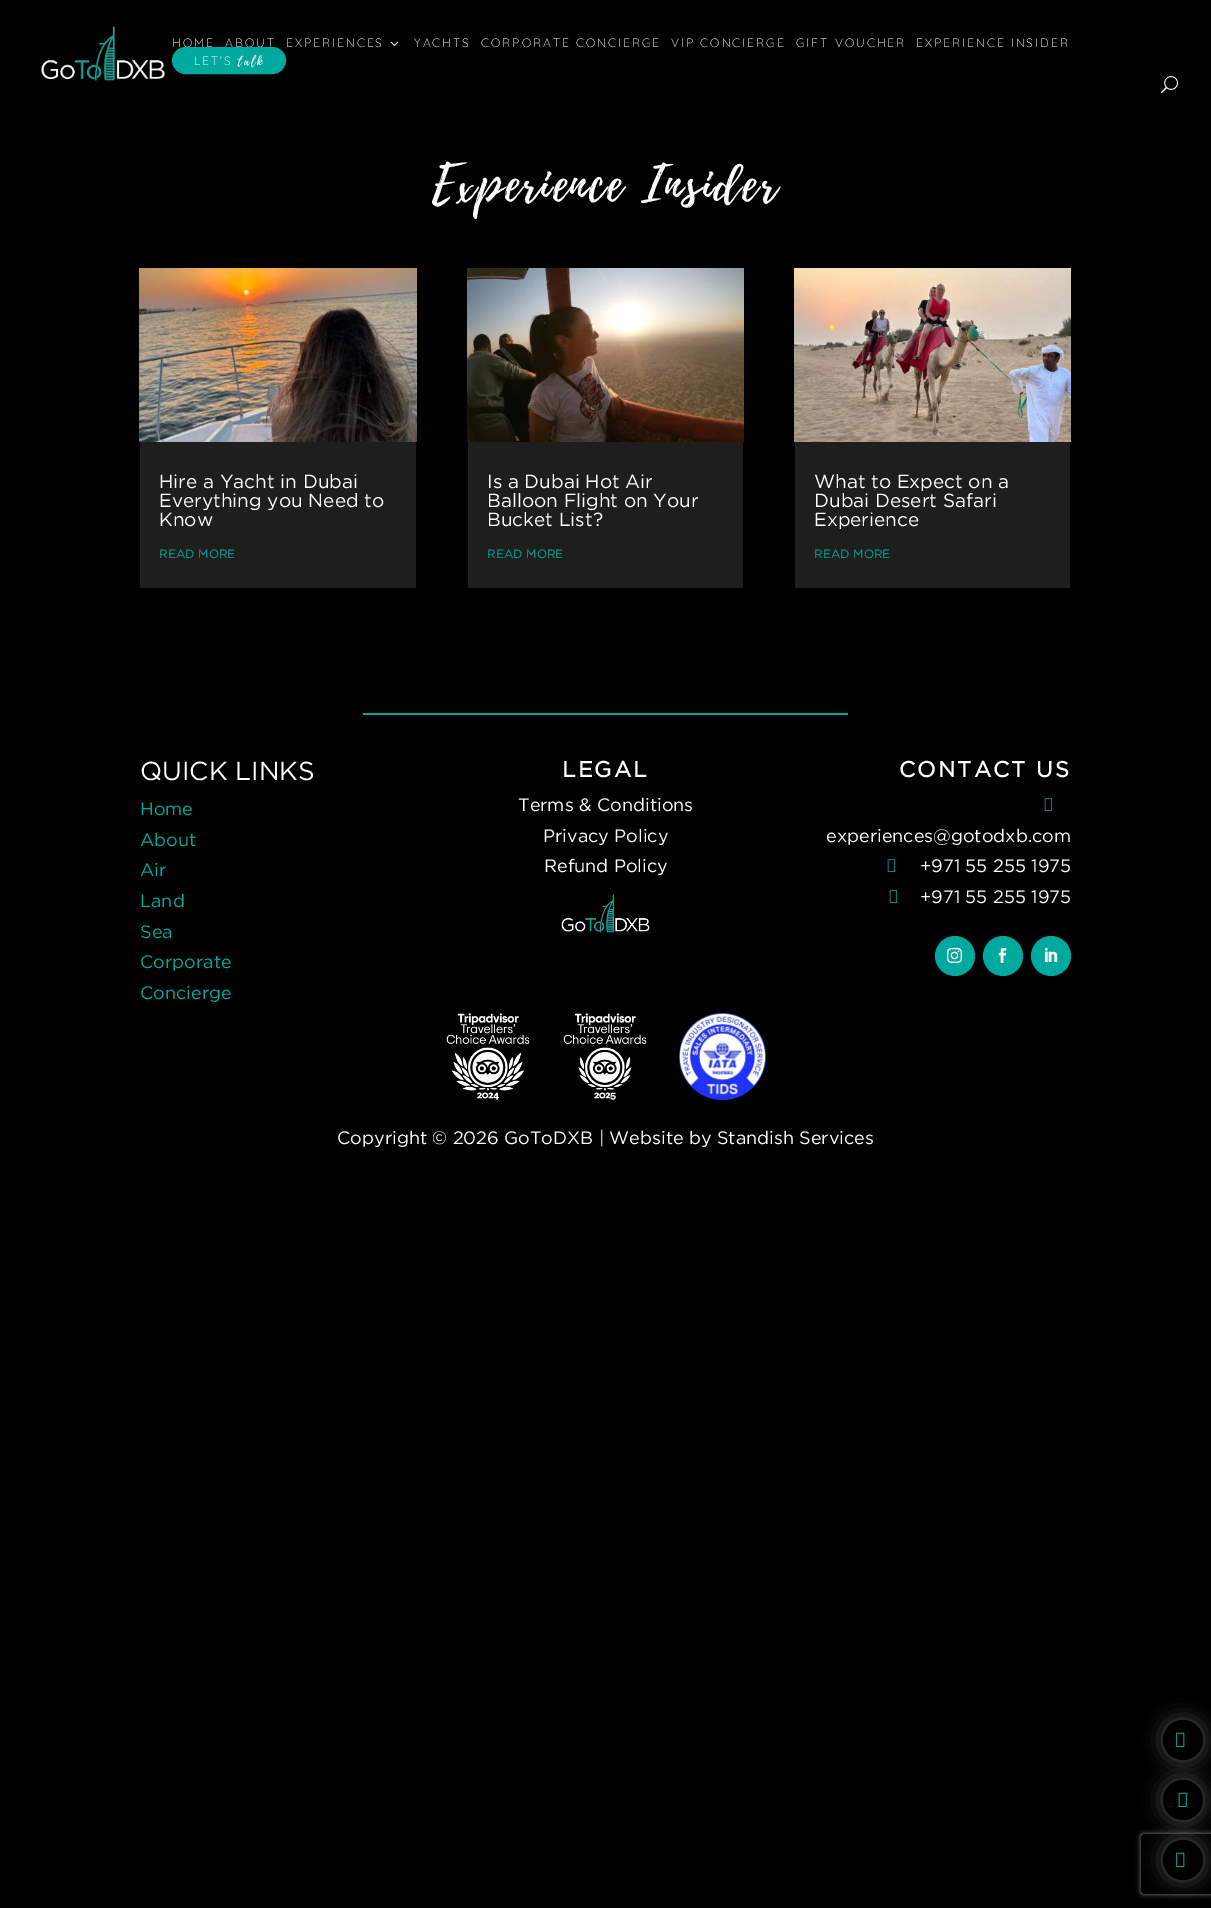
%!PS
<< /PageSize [1211 1908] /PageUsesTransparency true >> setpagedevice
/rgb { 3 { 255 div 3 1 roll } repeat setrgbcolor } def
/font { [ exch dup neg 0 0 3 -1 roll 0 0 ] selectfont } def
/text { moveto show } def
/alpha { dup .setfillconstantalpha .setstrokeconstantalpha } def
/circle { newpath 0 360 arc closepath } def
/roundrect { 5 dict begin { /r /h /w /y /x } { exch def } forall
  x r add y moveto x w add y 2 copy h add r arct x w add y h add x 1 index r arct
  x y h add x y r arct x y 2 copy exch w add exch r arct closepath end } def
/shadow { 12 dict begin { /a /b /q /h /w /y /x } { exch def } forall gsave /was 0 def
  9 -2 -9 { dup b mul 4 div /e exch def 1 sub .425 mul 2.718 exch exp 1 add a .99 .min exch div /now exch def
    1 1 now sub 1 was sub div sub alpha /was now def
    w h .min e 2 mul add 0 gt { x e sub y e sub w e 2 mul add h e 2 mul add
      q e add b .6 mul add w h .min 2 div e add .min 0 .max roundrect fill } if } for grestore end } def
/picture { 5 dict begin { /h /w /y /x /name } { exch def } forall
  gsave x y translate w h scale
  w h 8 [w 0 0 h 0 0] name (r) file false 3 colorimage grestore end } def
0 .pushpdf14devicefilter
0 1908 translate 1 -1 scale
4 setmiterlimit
0 0 0 rgb
0 0 1211 1908 rectfill
(img_01.rgb) 41 26 124 56 picture
(img_02.rgb) 390 41 9 5 picture
(img_03.rgb) 1161 76 17 18 picture
30 30 30 rgb
140 442 276 146 rectfill
(img_04.rgb) 139 268 278 174 picture
468 442 275 146 rectfill
(img_05.rgb) 467 268 277 174 picture
795 442 275 146 rectfill
(img_06.rgb) 794 268 277 174 picture
0 169 157 rgb
363 713 485 2 rectfill
(img_07.rgb) 561 894 89 39 picture
(img_08.rgb) 1044 798 9 13 picture
(img_08.rgb) 887 859 9 13 picture
(img_08.rgb) 889 890 9 13 picture
955 956 20 circle fill
(img_09.rgb) 947 947 15 16 picture
1003 956 20 circle fill
(img_10.rgb) 998 947 9 16 picture
1051 956 20 circle fill
(img_11.rgb) 1044 947 14 15 picture
(img_12.rgb) 446 1013 84 87 picture
(img_13.rgb) 563 1013 84 87 picture
(img_14.rgb) 679 1013 87 87 picture
255 255 255 rgb
1163 1720 40 40 20 10 0.3 shadow
0 0 0 rgb
1183 1740 20 circle fill
(img_15.rgb) 1176 1732 9 15 picture
255 255 255 rgb
1163 1780 40 40 20 10 0.3 shadow
0 0 0 rgb
1183 1800 20 circle fill
(img_16.rgb) 1178 1792 9 15 picture
255 255 255 rgb
1163 1840 40 40 20 10 0.3 shadow
gsave
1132 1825 moveto 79 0 rlineto 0 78 rlineto -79 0 rlineto closepath 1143 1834 moveto 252 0 rlineto 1 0 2 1 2 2 rcurveto 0 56 rlineto 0 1 -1 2 -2 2 rcurveto -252 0 rlineto -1 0 -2 -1 -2 -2 rcurveto 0 -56 rlineto 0 -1 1 -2 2 -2 rcurveto closepath eoclip newpath
128 128 128 rgb
1141 1834 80 60 2 2.5 1 shadow
grestore
0 0 0 rgb
1183 1860 20 circle fill
(img_15.rgb) 1176 1852 9 15 picture
/Quicksand-Light 12.1 font
255 255 255 rgb
172 47 moveto 2 0 (HOME) ashow
225 47 moveto 2 0 (ABOUT) ashow
286 47 moveto 2 0 (EXPERIENCES) ashow
414 47 moveto 2 0 (YACHTS) ashow
481 47 moveto 2 0 (CORPORATE CONCIERGE) ashow
671 47 moveto 2 0 (VIP CONCIERGE) ashow
796 47 moveto 2 0 (GIFT VOUCHER) ashow
916 47 moveto 2 0 (EXPERIENCE INSIDER) ashow
0 169 157 rgb
173 48 112 25 12.5 roundrect gsave fill grestore
2 setlinewidth
stroke
/Quicksand-Light 12 font
255 255 255 rgb
194 65 moveto 2 0 (LET’S) ashow
/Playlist-Regular 12 font
238 65 moveto 2 0 (talk) ashow
/Playlist-Regular 50 font
432 199 moveto 2 0 (Experience Insider) ashow
/Gotham-Regular 19 font
(Hire a Yacht in Dubai) 159 488 text
(Everything you Need to) 159 507 text
(Know) 159 526 text
/Gotham-Regular 12 font
0 169 157 rgb
(READ MORE) 159 558 text
/Gotham-Regular 19 font
255 255 255 rgb
(Is a Dubai Hot Air) 487 488 text
(Balloon Flight on Your) 487 507 text
(Bucket List?) 487 526 text
/Gotham-Regular 12 font
0 169 157 rgb
(READ MORE) 487 558 text
/Gotham-Regular 19 font
255 255 255 rgb
(What to Expect on a) 814 488 text
(Dubai Desert Safari) 814 507 text
(Experience) 814 526 text
/Gotham-Regular 12 font
0 169 157 rgb
(READ MORE) 814 558 text
/Gotham-Regular 26 font
255 255 255 rgb
(QUICK LINKS) 140 780 text
/Gotham-Regular 18 font
0 169 157 rgb
(Home) 140 815 text
(About) 140 846 text
(Air) 140 876 text
(Land) 140 907 text
(Sea) 140 938 text
(Corporate) 140 968 text
(Concierge) 140 999 text
/Gotham-Bold 22 font
255 255 255 rgb
562 777 moveto 2 0 (LEGAL) ashow
/Gotham-Regular 18 font
(Terms & Conditions) 518 811 text
(Privacy Policy) 543 842 text
(Refund Policy) 544 872 text
/Gotham-Bold 22 font
899 777 moveto 2 0 (CONTACT US) ashow
/Gotham-Regular 18 font
(experiences@gotodxb.com) 826 842 text
(+971 55 255 1975) 920 872 text
(+971 55 255 1975) 920 903 text
(Copyright © 2026 GoToDXB | Website by Standish Services) 337 1144 text
.poppdf14devicefilter showpage
